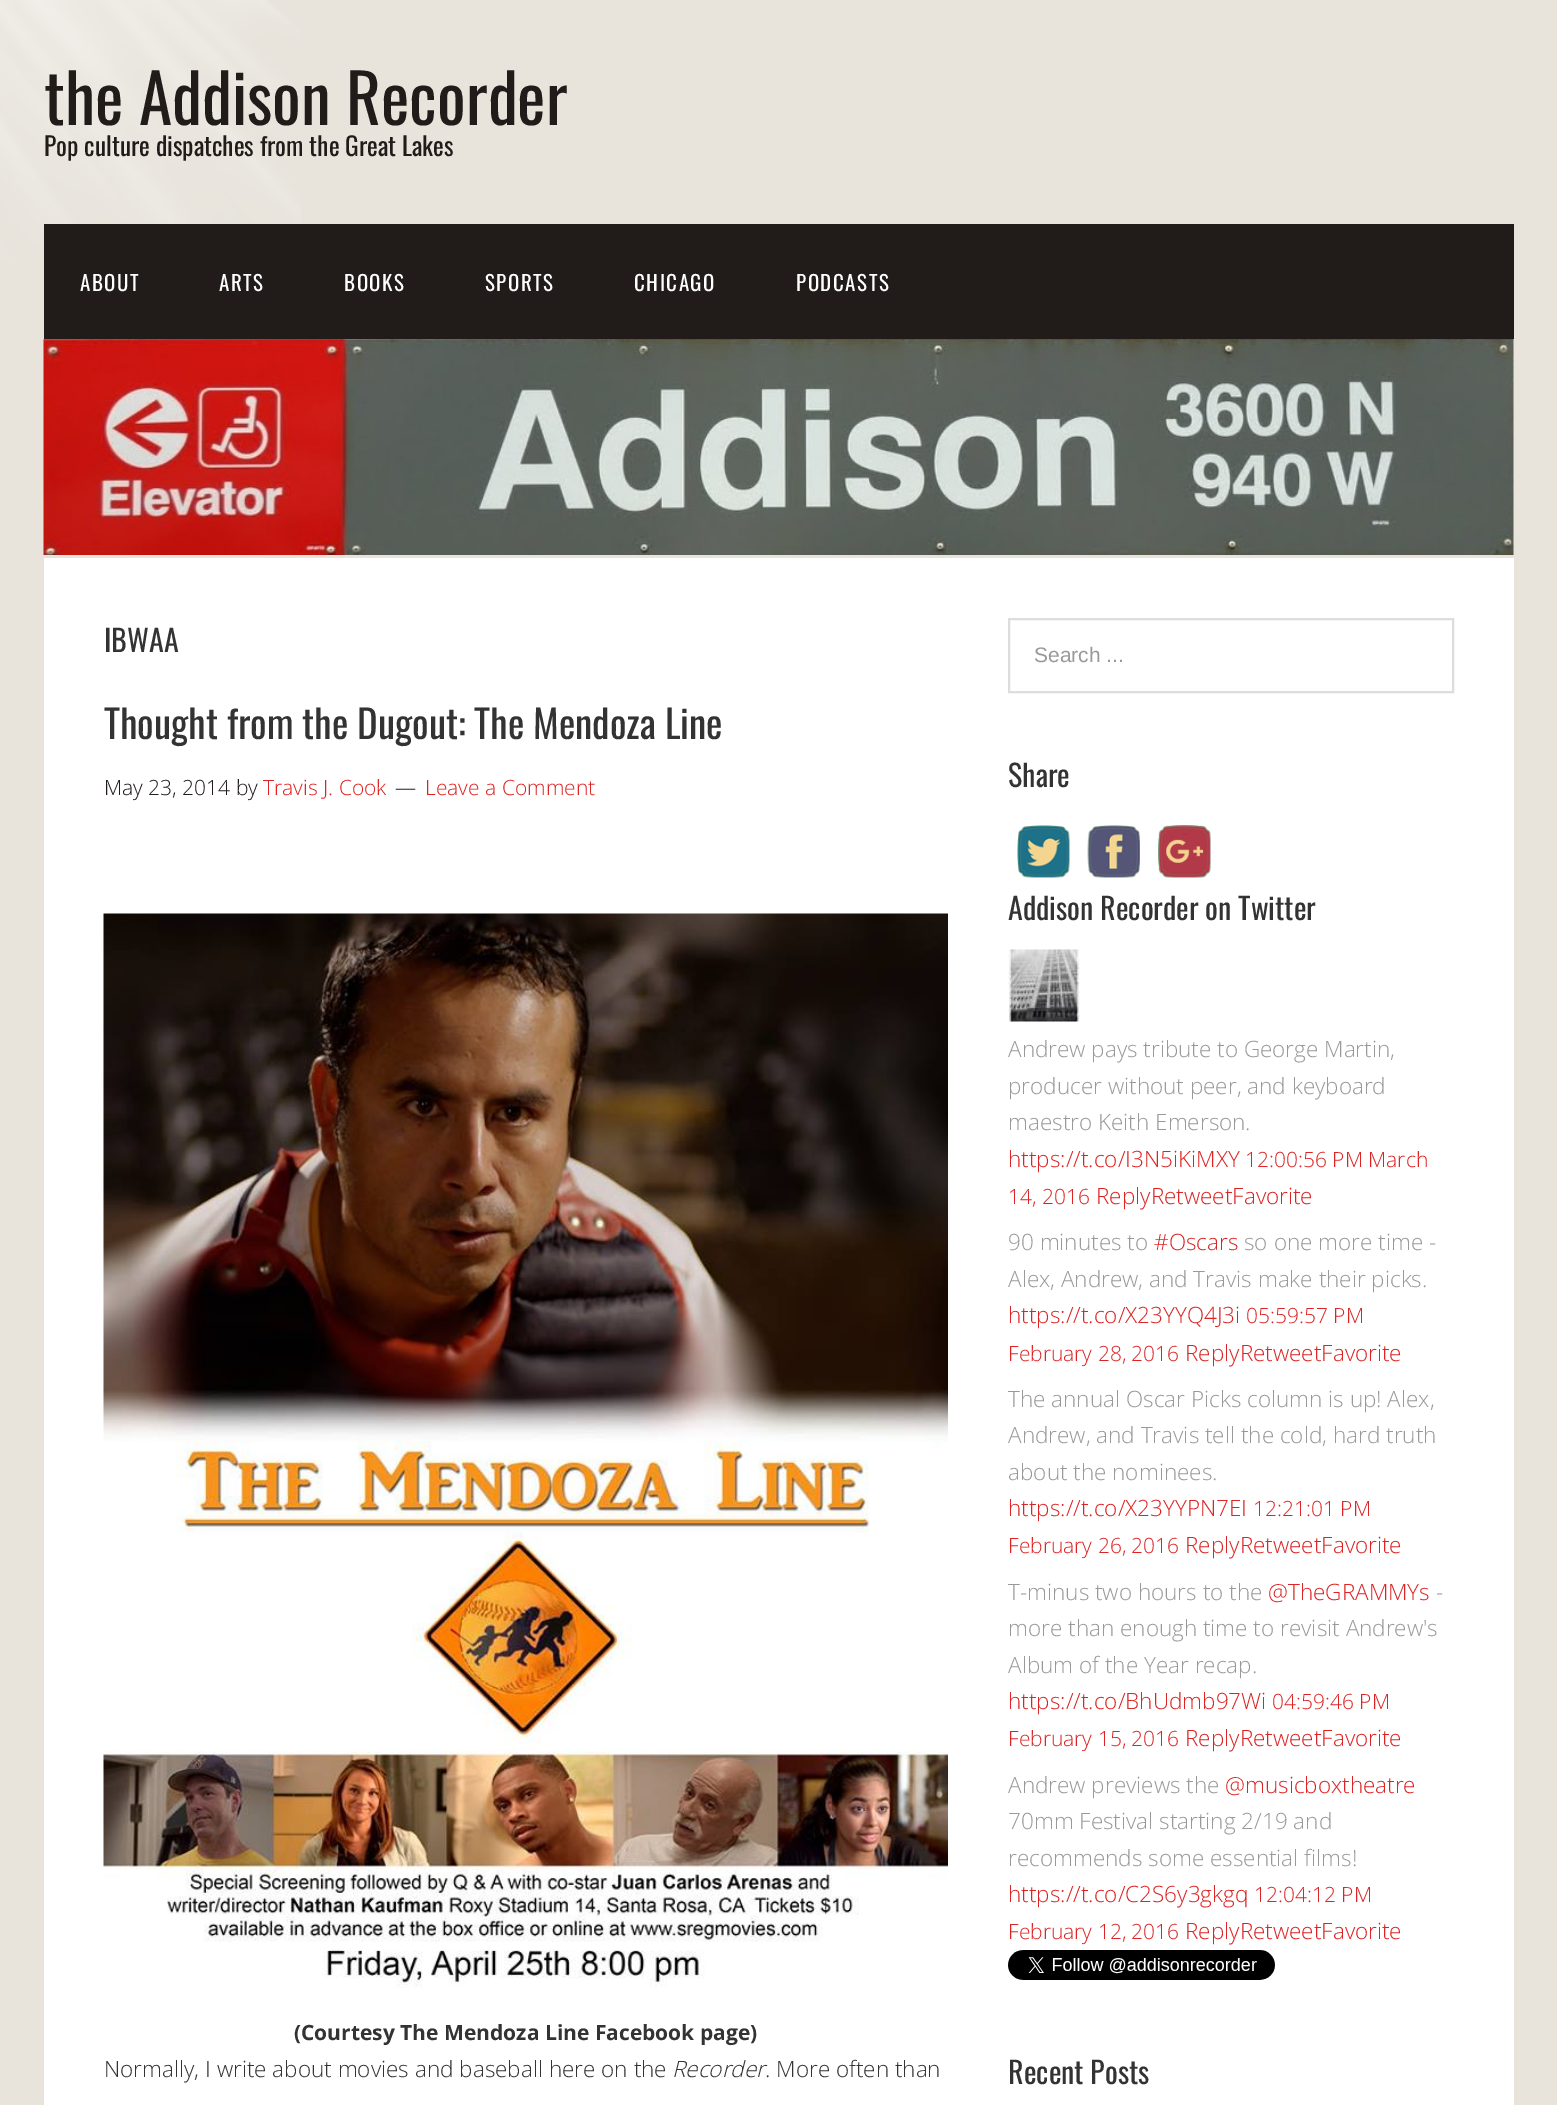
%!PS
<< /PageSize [1557 2105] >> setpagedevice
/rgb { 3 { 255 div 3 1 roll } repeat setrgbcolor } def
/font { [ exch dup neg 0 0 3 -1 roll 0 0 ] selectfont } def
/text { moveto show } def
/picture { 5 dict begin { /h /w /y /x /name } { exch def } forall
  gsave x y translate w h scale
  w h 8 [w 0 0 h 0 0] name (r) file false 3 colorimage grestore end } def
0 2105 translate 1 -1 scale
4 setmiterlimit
232 228 220 rgb
0 0 1557 2105 rectfill
(img_01.rgb) 0 0 301 259 picture
33 27 26 rgb
44 224 1470 115 rectfill
(img_02.rgb) 43 339 1471 216 picture
255 255 255 rgb
44 558 1470 1547 rectfill
(img_03.rgb) 103 913 845 1075 picture
221 221 221 rgb
2 setlinewidth
1009 619 444 73 rectstroke
(img_04.rgb) 1017 825 53 53 picture
(img_05.rgb) 1087 825 53 53 picture
(img_06.rgb) 1158 825 53 53 picture
(img_07.rgb) 1008 949 72 73 picture
(img_08.rgb) 1008 1950 267 30 picture
/Oswald-Regular 67.5 font
33 27 26 rgb
(the Addison Recorder) 44 125 text
/Oswald-Regular 25.5 font
(Pop culture dispatches from the Great Lakes) 44 156 text
/Oswald-Regular 21 font
255 255 255 rgb
80 291 moveto 1.5 0 (ABOUT) ashow
219 291 moveto 1.5 0 (ARTS) ashow
344 291 moveto 1.5 0 (BOOKS) ashow
485 291 moveto 1.5 0 (SPORTS) ashow
634 291 moveto 1.5 0 (CHICAGO) ashow
796 291 moveto 1.5 0 (PODCASTS) ashow
/Oswald-Regular 30 font
51 51 51 rgb
(IBWAA) 104 652 text
/Oswald-Regular 39 font
(Thought from the Dugout: The Mendoza Line) 104 739 text
/OpenSans-Light 21 font
33 27 26 rgb
(May 23, 2014 by) 104 795 text
221 35 35 rgb
(Travis J. Cook) 263 795 text
33 27 26 rgb
(—) 395 795 text
221 35 35 rgb
(Leave a Comment) 425 795 text
/OpenSans-Bold 21 font
51 51 51 rgb
(\(Courtesy The Mendoza Line Facebook page\)) 294 2040 text
/OpenSans-Light 22.5 font
(Normally, I write about movies and baseball here on the) 104 2077 text
/OpenSans-LightItalic 22.5 font
(Recorder) 672 2077 text
/OpenSans-Light 22.5 font
(. More often than) 765 2077 text
/LiberationSans-Regular 21 font
153 153 153 rgb
(Search ...) 1034 662 text
/Oswald-Regular 30 font
51 51 51 rgb
(Share) 1008 787 text
(Addison Recorder on Twitter) 1008 920 text
/OpenSans-Light 22.5 font
153 153 153 rgb
(Andrew pays tribute to George Martin,) 1008 1057 text
(producer without peer, and keyboard) 1008 1094 text
(maestro Keith Emerson.) 1008 1130 text
221 35 35 rgb
(https://t.co/I3N5iKiMXY) 1008 1167 text
/OpenSans-Light 21 font
(12:00:56 PM March) 1245 1167 text
(14, 2016) 1008 1204 text
/OpenSans-Light 22.5 font
(ReplyRetweetFavorite) 1096 1204 text
153 153 153 rgb
(90 minutes to) 1008 1250 text
221 35 35 rgb
(#Oscars) 1154 1250 text
153 153 153 rgb
(so one more time -) 1244 1250 text
(Alex, Andrew, and Travis make their picks.) 1008 1287 text
221 35 35 rgb
(https://t.co/X23YYQ4J3i) 1008 1323 text
/OpenSans-Light 21 font
(05:59:57 PM) 1246 1323 text
(February 28, 2016) 1008 1361 text
/OpenSans-Light 22.5 font
(ReplyRetweetFavorite) 1185 1361 text
153 153 153 rgb
(The annual Oscar Picks column is up! Alex,) 1008 1407 text
(Andrew, and Travis tell the cold, hard truth) 1008 1443 text
(about the nominees.) 1008 1480 text
221 35 35 rgb
(https://t.co/X23YYPN7EI) 1008 1516 text
/OpenSans-Light 21 font
(12:21:01 PM) 1253 1516 text
(February 26, 2016) 1008 1553 text
/OpenSans-Light 22.5 font
(ReplyRetweetFavorite) 1185 1553 text
153 153 153 rgb
(T-minus two hours to the) 1008 1600 text
221 35 35 rgb
(@TheGRAMMYs) 1268 1600 text
153 153 153 rgb
(-) 1436 1600 text
(more than enough time to revisit Andrew's) 1008 1636 text
(Album of the Year recap.) 1008 1673 text
221 35 35 rgb
(https://t.co/BhUdmb97Wi) 1008 1709 text
/OpenSans-Light 21 font
(04:59:46 PM) 1272 1709 text
(February 15, 2016) 1008 1746 text
/OpenSans-Light 22.5 font
(ReplyRetweetFavorite) 1185 1746 text
153 153 153 rgb
(Andrew previews the) 1008 1793 text
221 35 35 rgb
(@musicboxtheatre) 1225 1793 text
153 153 153 rgb
(70mm Festival starting 2/19 and) 1008 1829 text
(recommends some essential films!) 1008 1866 text
221 35 35 rgb
(https://t.co/C2S6y3gkgq) 1008 1902 text
/OpenSans-Light 21 font
(12:04:12 PM) 1254 1902 text
(February 12, 2016) 1008 1939 text
/OpenSans-Light 22.5 font
(ReplyRetweetFavorite) 1185 1939 text
/Oswald-Regular 30 font
51 51 51 rgb
(Recent Posts) 1008 2084 text
showpage
